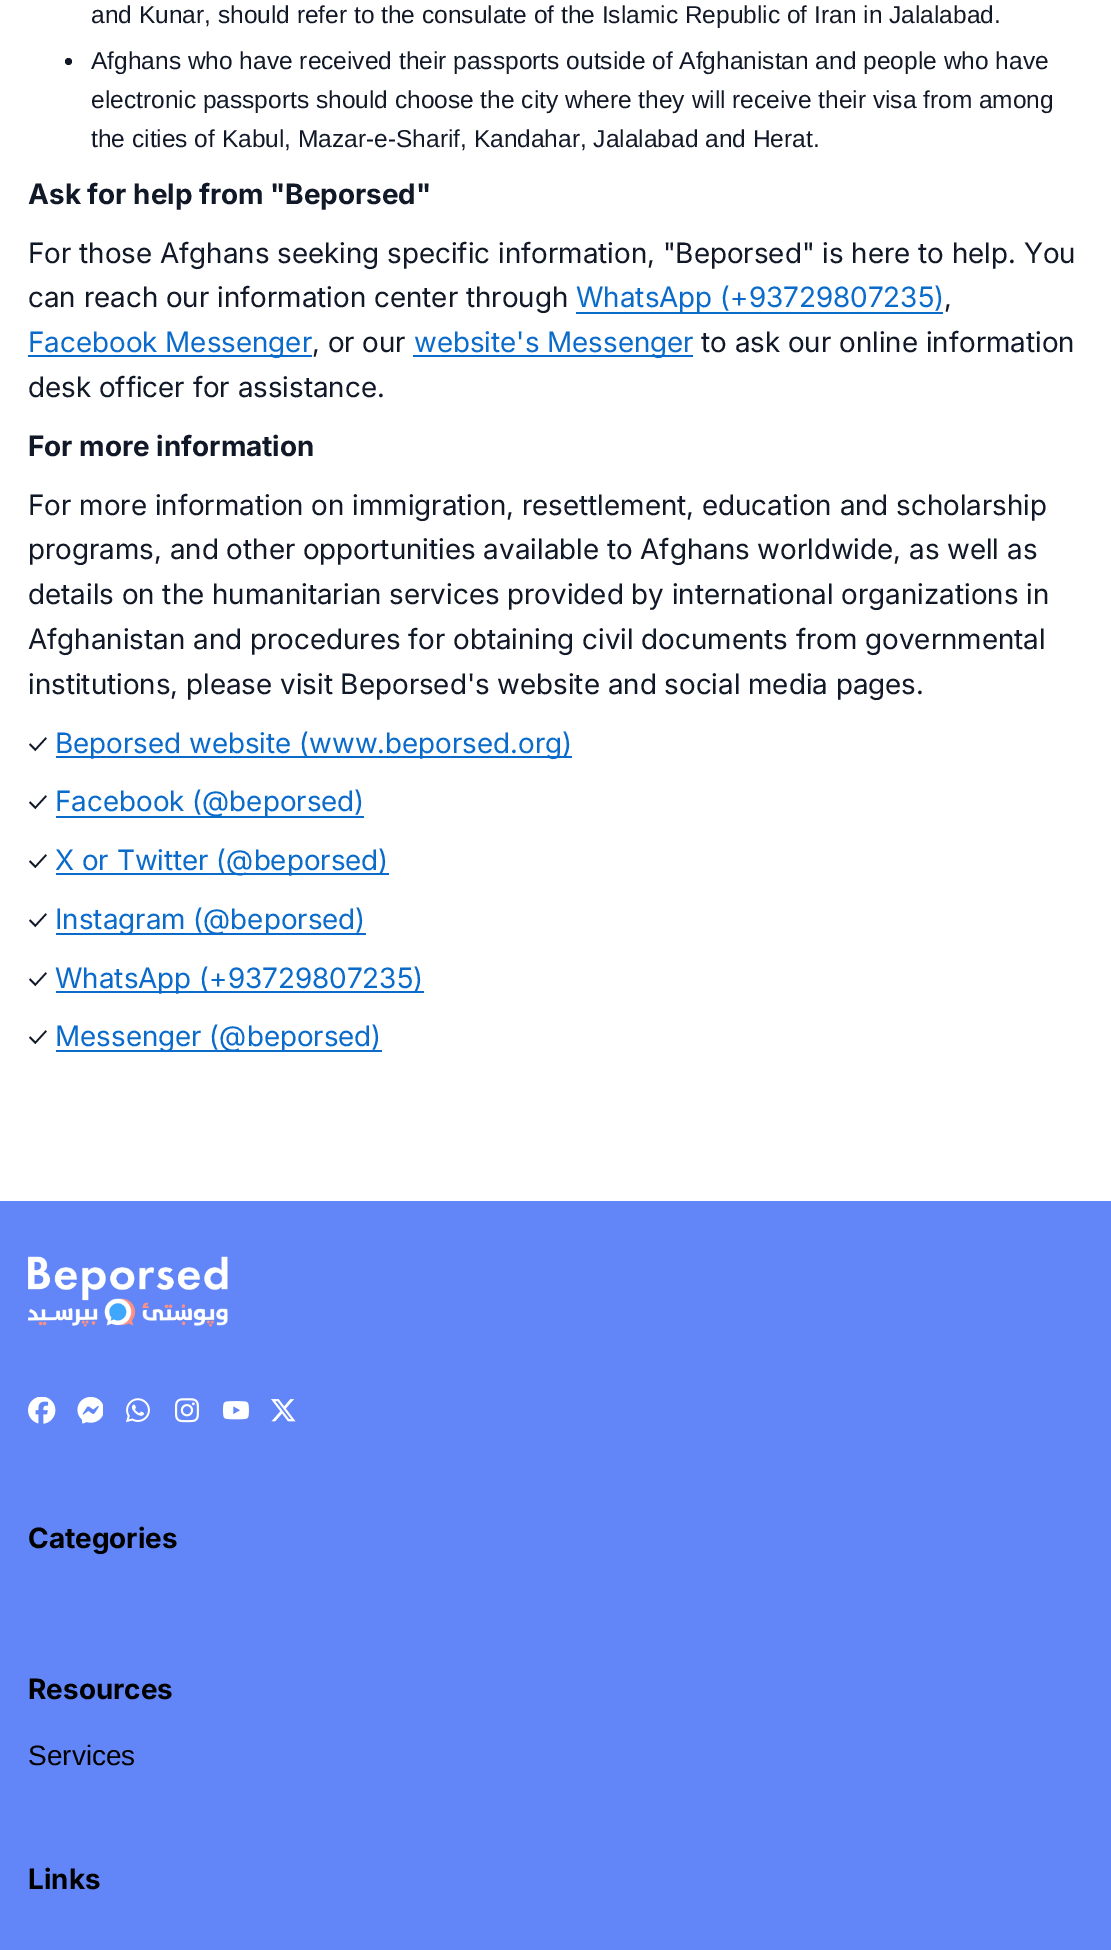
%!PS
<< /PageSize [1111 1950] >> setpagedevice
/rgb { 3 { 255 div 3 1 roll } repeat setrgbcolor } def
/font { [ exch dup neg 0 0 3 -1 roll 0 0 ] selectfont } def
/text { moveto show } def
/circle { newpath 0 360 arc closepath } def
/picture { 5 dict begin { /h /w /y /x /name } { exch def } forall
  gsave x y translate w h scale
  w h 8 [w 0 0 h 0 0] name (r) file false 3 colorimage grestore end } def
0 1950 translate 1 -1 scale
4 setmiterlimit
255 255 255 rgb
0 0 1111 1950 rectfill
17 24 39 rgb
68.5 61.5 3.5 circle fill
11 107 203 rgb
576 312 367 2 rectfill
28 355 284 2 rectfill
413 355 280 2 rectfill
56 756 516 2 rectfill
56 816 308 2 rectfill
56 873 333 2 rectfill
56 933 310 2 rectfill
56 991 368 2 rectfill
56 1050 326 2 rectfill
98 134 247 rgb
0 1201 1111 749 rectfill
(img_01.rgb) 28 1256 200 71 picture
(img_02.rgb) 28 1397 28 27 picture
(img_03.rgb) 77 1397 26 27 picture
(img_04.rgb) 126 1398 24 25 picture
(img_05.rgb) 174 1398 25 25 picture
(img_06.rgb) 222 1401 27 19 picture
(img_07.rgb) 271 1399 25 23 picture
/LiberationSans-Regular 24.5 font
17 24 39 rgb
(and Kunar, should refer to the consulate of the Islamic Republic of Iran in Jalalabad.) 91 23 text
(Afghans who have received their passports outside of Afghanistan and people who have) 91 69 text
(electronic passports should choose the city where they will receive their visa from among) 91 108 text
(the cities of Kabul, Mazar-e-Sharif, Kandahar, Jalalabad and Herat.) 91 147 text
/Inter-Bold 28 font
(A) 28 204 text
/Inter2-Bold 28 font
(sk for help from "Beporsed") 49 204 text
/Inter-Regular 28 font
(For those Afghans seeking specific information, "Beporsed" is here to help. You) 28 263 text
(can reach our information center through) 28 307 text
11 107 203 rgb
(WhatsApp \(+93729807235\)) 576 307 text
17 24 39 rgb
(,) 944 307 text
11 107 203 rgb
(Facebook Messenger) 28 352 text
17 24 39 rgb
(, or our) 312 352 text
11 107 203 rgb
(website's Messenger) 414 352 text
17 24 39 rgb
(to ask our online information) 701 352 text
(desk officer for assistance.) 28 397 text
/Inter2-Bold 28 font
(For more information) 28 456 text
/Inter-Regular 28 font
(For more information on immigration, resettlement, education and scholarship) 28 515 text
(programs, and other opportunities available to Afghans worldwide, as well as) 28 559 text
(details on the humanitarian services provided by international organizations in) 28 604 text
(Afghanistan and procedures for obtaining civil documents from governmental) 28 649 text
(institutions, please visit Beporsed's website and social media pages.) 28 694 text
/Ubuntu-Regular 28 font
(✓) 28 753 text
/Inter-Regular 28 font
11 107 203 rgb
(Beporsed website \(www.beporsed.org\)) 55 753 text
/Ubuntu-Regular 28 font
17 24 39 rgb
(✓) 28 811 text
/Inter-Regular 28 font
11 107 203 rgb
(Facebook \(@beporsed\)) 55 811 text
/Ubuntu-Regular 28 font
17 24 39 rgb
(✓) 28 870 text
/Inter-Regular 28 font
11 107 203 rgb
(X or Twitter \(@beporsed\)) 55 870 text
/Ubuntu-Regular 28 font
17 24 39 rgb
(✓) 28 929 text
/Inter-Regular 28 font
11 107 203 rgb
(Instagram \(@beporsed\)) 55 929 text
/Ubuntu-Regular 28 font
17 24 39 rgb
(✓) 28 988 text
/Inter-Regular 28 font
11 107 203 rgb
(WhatsApp \(+93729807235\)) 55 988 text
/Ubuntu-Regular 28 font
17 24 39 rgb
(✓) 28 1046 text
/Inter-Regular 28 font
11 107 203 rgb
(Messenger \(@beporsed\)) 55 1046 text
/Inter2-Bold 28 font
0 0 0 rgb
(Categories) 28 1548 text
(Resources) 28 1699 text
/LiberationSans-Regular 28 font
(Services) 28 1765 text
/Inter2-Bold 28 font
(Links) 28 1889 text
showpage
